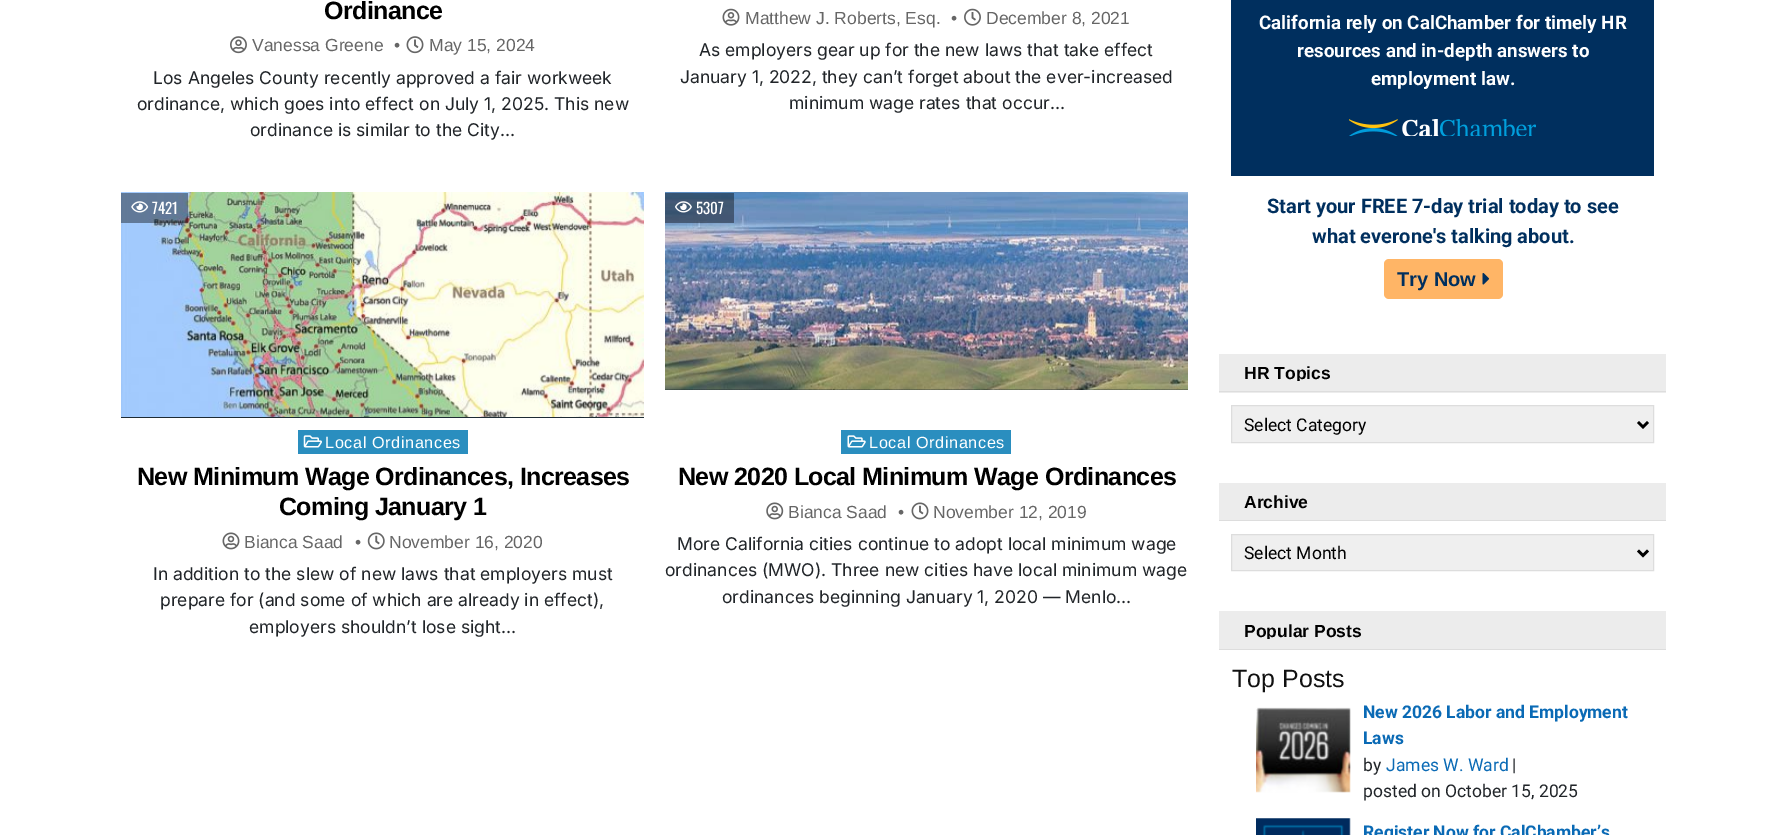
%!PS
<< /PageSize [1773 835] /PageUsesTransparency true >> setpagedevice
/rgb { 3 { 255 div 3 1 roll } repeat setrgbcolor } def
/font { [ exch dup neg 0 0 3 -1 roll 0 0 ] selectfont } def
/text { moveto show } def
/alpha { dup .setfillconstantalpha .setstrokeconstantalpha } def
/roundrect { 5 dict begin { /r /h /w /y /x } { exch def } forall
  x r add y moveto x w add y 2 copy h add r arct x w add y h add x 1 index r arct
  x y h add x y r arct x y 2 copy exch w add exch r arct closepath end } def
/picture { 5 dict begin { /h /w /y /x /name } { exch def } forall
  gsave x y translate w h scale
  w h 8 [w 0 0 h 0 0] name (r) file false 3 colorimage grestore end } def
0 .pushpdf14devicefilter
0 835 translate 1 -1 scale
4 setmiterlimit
255 255 255 rgb
0 0 1773 835 rectfill
(img_01.rgb) 230 36 17 18 picture
(img_02.rgb) 406 36 18 18 picture
(img_03.rgb) 722 8 18 18 picture
(img_04.rgb) 964 8 17 18 picture
30 43 52 rgb
121 417 523 1 rectfill
(img_05.rgb) 121 192 523 225 picture
0.4 alpha
0 0 0 rgb
121 193 67 30 rectfill
1 alpha
(img_06.rgb) 131 201 18 12 picture
42 142 191 rgb
298 430 170 24 rectfill
(img_07.rgb) 303 435 19 13 picture
(img_08.rgb) 222 532 18 18 picture
(img_09.rgb) 367 532 18 18 picture
30 43 52 rgb
665 389 523 1 rectfill
(img_10.rgb) 665 389 523 1 picture
(img_11.rgb) 665 192 523 198 picture
0.4 alpha
0 0 0 rgb
665 193 69 30 rectfill
1 alpha
(img_12.rgb) 675 201 17 12 picture
42 142 191 rgb
841 430 170 24 rectfill
(img_13.rgb) 847 435 19 13 picture
(img_14.rgb) 766 502 18 18 picture
(img_15.rgb) 911 502 18 18 picture
0 47 94 rgb
1231 0 423 176 rectfill
(img_16.rgb) 1349 119 187 17 picture
255 181 102 rgb
1384 259 119 40 5 roundrect fill
(img_17.rgb) 1482 273 8 12 picture
236 236 236 rgb
1219 354 447 39 rectfill
221 221 221 rgb
1219 391 447 1 rectfill
239 239 239 rgb
1231.5 405.5 moveto 422 0 rlineto 0 37 rlineto -422 0 rlineto closepath gsave fill grestore
221 221 221 rgb
stroke
0 0 0 rgb
2.5 setlinewidth
1638 422 moveto 5 5 rlineto 5 -5 rlineto stroke
236 236 236 rgb
1219 483 447 37 rectfill
221 221 221 rgb
1219 520 447 1 rectfill
239 239 239 rgb
1231.5 534.5 moveto 422 0 rlineto 0 36 rlineto -422 0 rlineto closepath gsave fill grestore
221 221 221 rgb
1 setlinewidth
stroke
0 0 0 rgb
2.5 setlinewidth
1638 550.5 moveto 5 5 rlineto 5 -5 rlineto stroke
236 236 236 rgb
1219 611 447 38 rectfill
221 221 221 rgb
1219 649 447 1 rectfill
(img_18.rgb) 1256 707 95 86 picture
(img_19.rgb) 1256 818 95 17 picture
/LiberationSans-Bold 25 font
0 0 0 rgb
324 19 moveto -0.6 0 (Ordinance) ashow
/LiberationSans-Regular 17.5 font
102 102 102 rgb
(Vanessa Greene) 252 51 text
(•) 394 51 text
(May 15, 2024) 429 51 text
/Inter-Regular 17.5 font
33 37 41 rgb
(Los Angeles County recently approved a fair workweek) 153 84 text
(ordinance, which goes into effect on July 1, 2025. This new) 137 110 text
(ordinance is similar to the City…) 250 136 text
/LiberationSans-Regular 17.5 font
102 102 102 rgb
(Matthew J. Roberts, Esq.) 745 24 text
(•) 951 24 text
(December 8, 2021) 986 24 text
/Inter-Regular 17.5 font
33 37 41 rgb
(As employers gear up for the new laws that take effect) 699 56 text
(January 1, 2022, they can’t forget about the ever-increased) 680 83 text
(minimum wage rates that occur…) 789 109 text
/Oswald-Regular 15 font
255 255 255 rgb
(7421) 152 214 text
/LiberationSans-Regular 16.25 font
325 448 moveto 0.6 0 (Local Ordinances) ashow
/LiberationSans-Bold 25 font
0 0 0 rgb
137 485 moveto -0.6 0 (New Minimum Wage Ordinances, Increases) ashow
279 515 moveto -0.6 0 (Coming January 1) ashow
/LiberationSans-Regular 17.5 font
102 102 102 rgb
(Bianca Saad) 244 548 text
(•) 355 548 text
(November 16, 2020) 389 548 text
/Inter-Regular 17.5 font
33 37 41 rgb
(In addition to the slew of new laws that employers must) 153 580 text
(prepare for \(and some of which are already in effect\),) 160 606 text
(employers shouldn’t lose sight…) 249 633 text
/Oswald-Regular 15 font
255 255 255 rgb
(5307) 696 214 text
/LiberationSans-Regular 16.25 font
869 448 moveto 0.6 0 (Local Ordinances) ashow
/LiberationSans-Bold 25 font
0 0 0 rgb
678 485 moveto -0.6 0 (New 2020 Local Minimum Wage Ordinances) ashow
/LiberationSans-Regular 17.5 font
102 102 102 rgb
(Bianca Saad) 788 518 text
(•) 898 518 text
(November 12, 2019) 933 518 text
/Inter-Regular 17.5 font
33 37 41 rgb
(More California cities continue to adopt local minimum wage) 677 550 text
(ordinances \(MWO\). Three new cities have local minimum wage) 665 576 text
(ordinances beginning January 1, 2020 — Menlo…) 722 603 text
/Roboto-Bold 18.75 font
255 255 255 rgb
(California rely on CalChamber for timely HR) 1259 29 text
(resources and in-depth answers to) 1297 57 text
(employment law.) 1371 85 text
/Roboto-Bold 20 font
0 47 94 rgb
(Start your FREE 7-day trial today to see) 1267 213 text
(what everone's talking about.) 1312 243 text
/LiberationSans-Bold 20 font
(Try Now) 1397 286 text
gsave
1231 364 423 17 rectclip
/LiberationSans-Bold 17.5 font
0 0 0 rgb
(HR Topics) 1244 379 text
grestore
/Roboto-Regular 17.5 font
0 0 0 rgb
(Select Category) 1244 431 text
/LiberationSans-Bold 17.5 font
(Archive) 1244 508 text
/Roboto-Regular 17.5 font
(Select Month) 1244 559 text
gsave
1231 621 423 18 rectclip
/LiberationSans-Bold 17.5 font
(Popular Posts) 1244 637 text
grestore
/LiberationSans-Regular 25 font
17 17 17 rgb
(Top Posts) 1232 687 text
/Roboto-Bold 17.5 font
10 106 181 rgb
(New 2026 Labor and Employment) 1363 718 text
(Laws) 1363 744 text
/Roboto-Regular 17.5 font
33 37 41 rgb
(by) 1363 771 text
10 106 181 rgb
(James W. Ward) 1386 771 text
33 37 41 rgb
(|) 1512 771 text
(posted on October 15, 2025) 1363 797 text
/Roboto-Bold 17.5 font
10 106 181 rgb
(Register Now for CalChamber’s) 1363 838 text
.poppdf14devicefilter showpage
